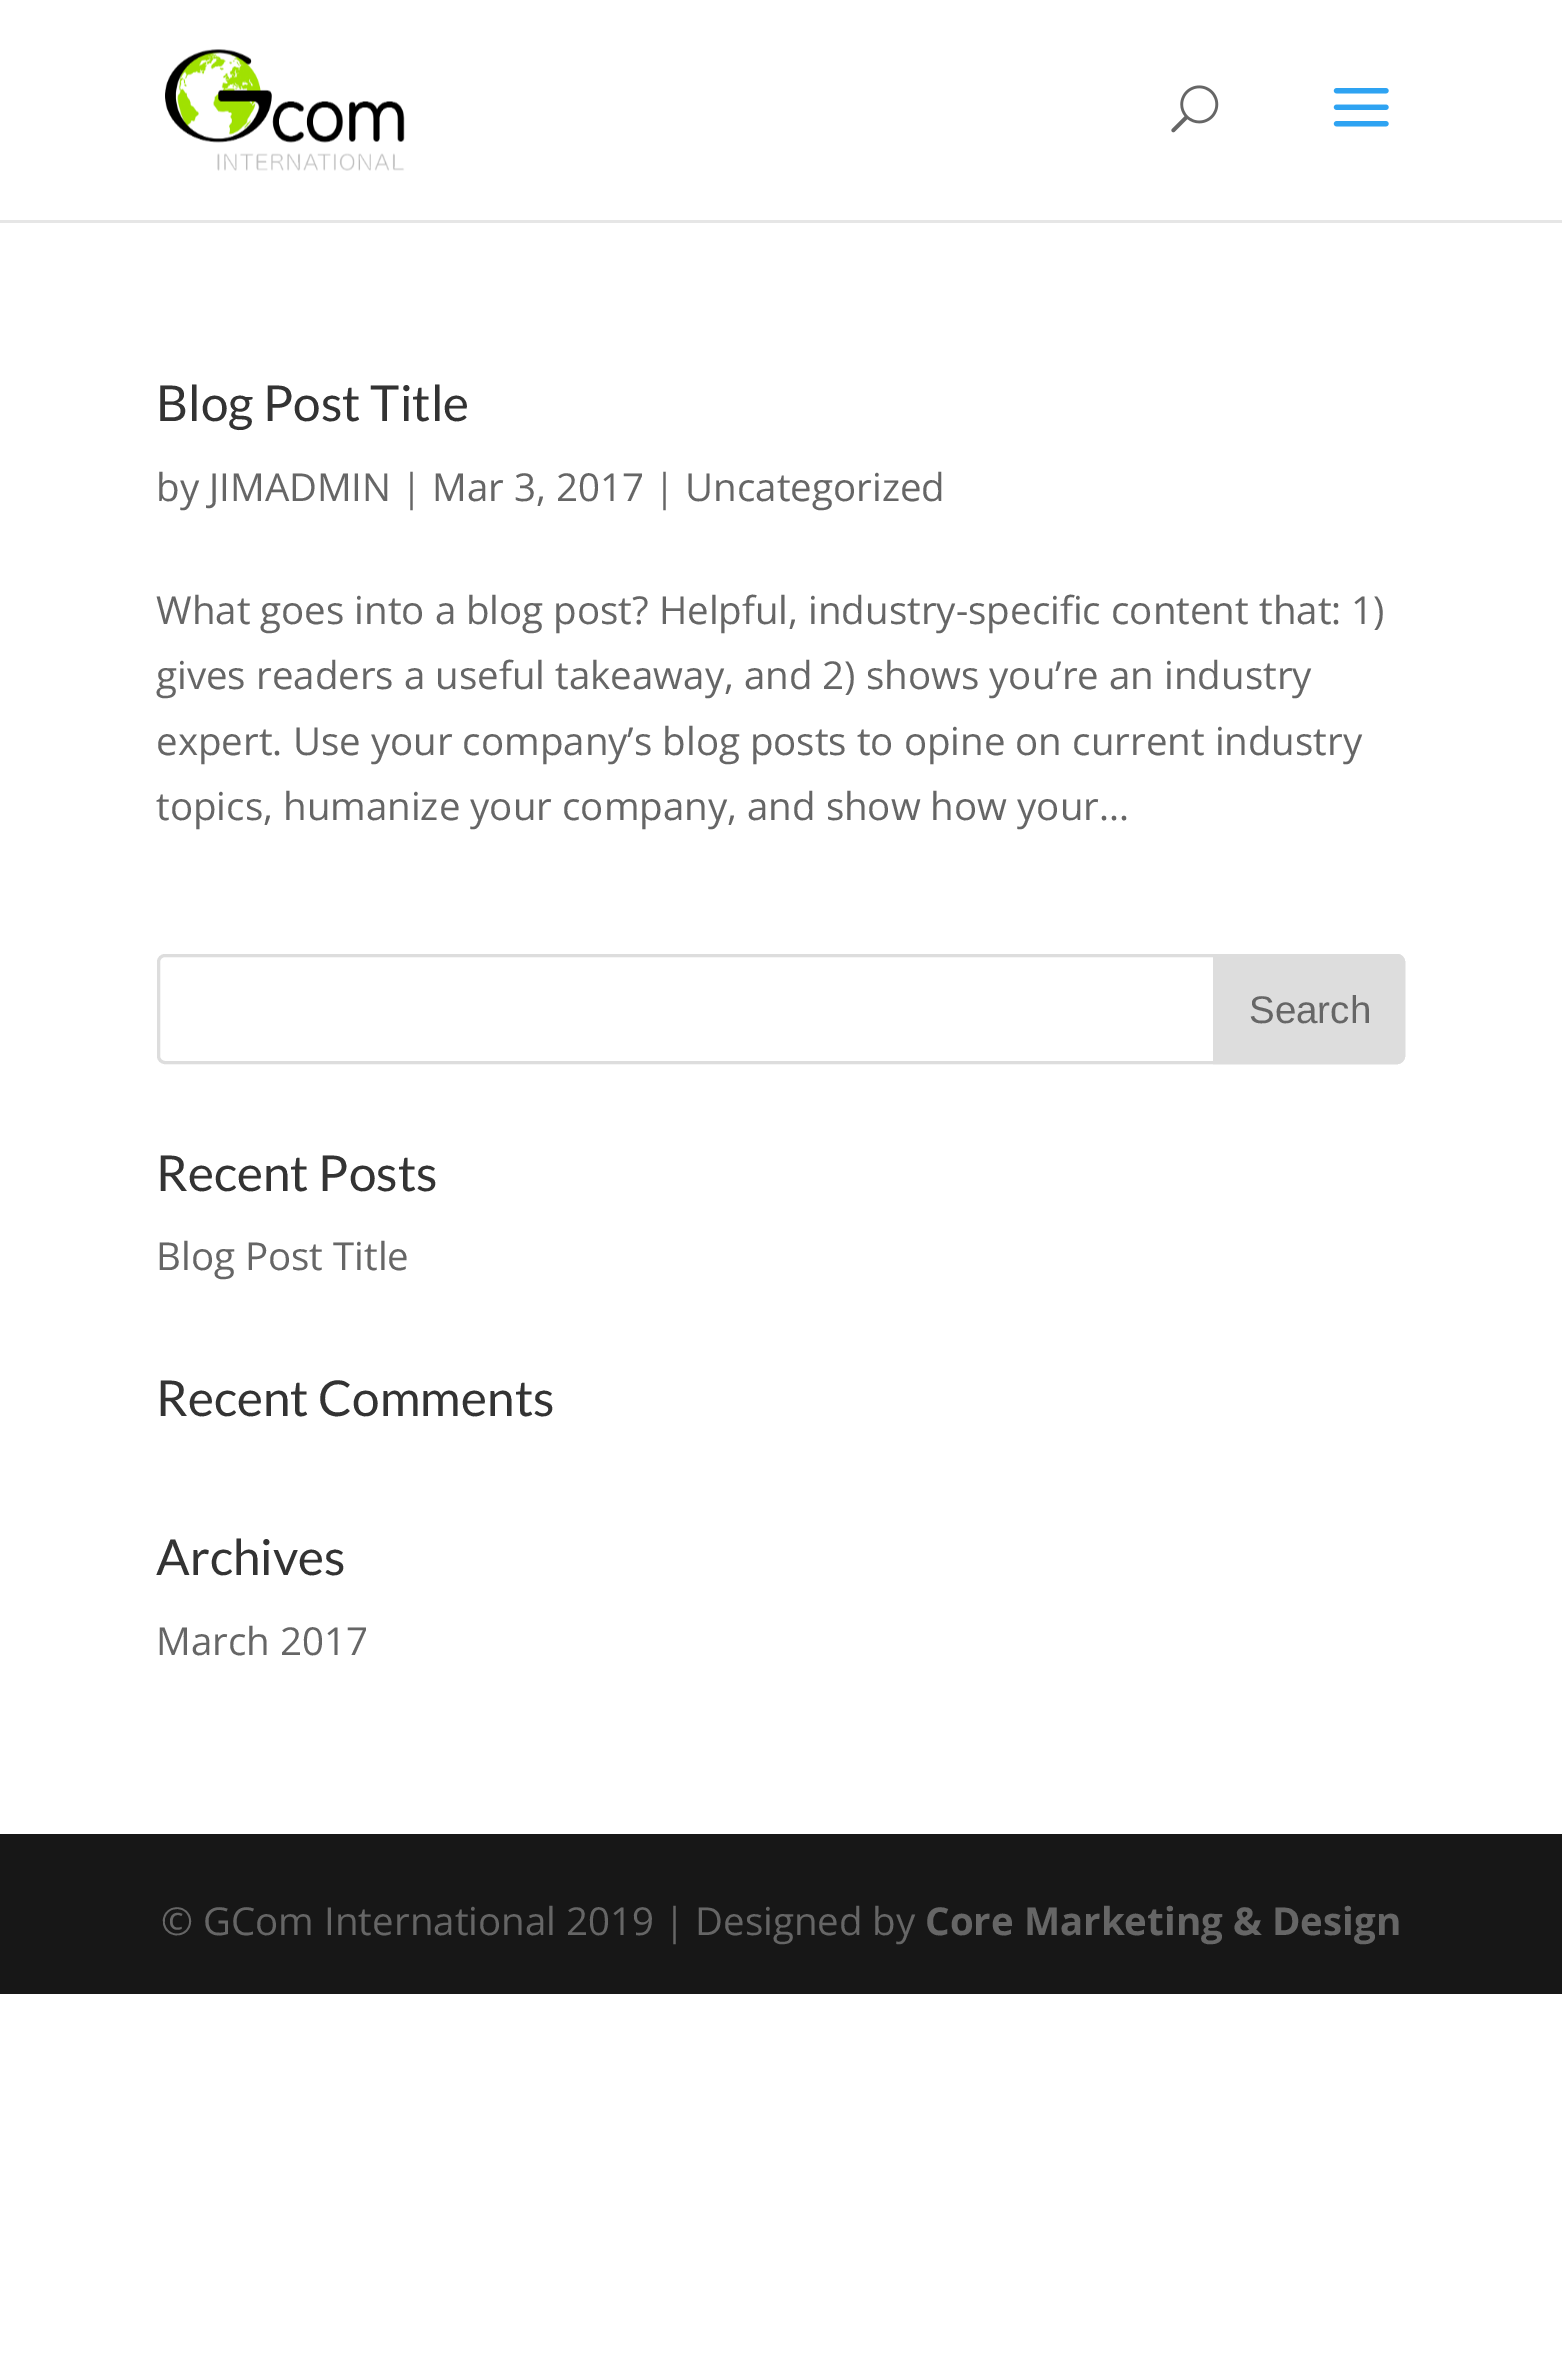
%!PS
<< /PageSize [1562 2368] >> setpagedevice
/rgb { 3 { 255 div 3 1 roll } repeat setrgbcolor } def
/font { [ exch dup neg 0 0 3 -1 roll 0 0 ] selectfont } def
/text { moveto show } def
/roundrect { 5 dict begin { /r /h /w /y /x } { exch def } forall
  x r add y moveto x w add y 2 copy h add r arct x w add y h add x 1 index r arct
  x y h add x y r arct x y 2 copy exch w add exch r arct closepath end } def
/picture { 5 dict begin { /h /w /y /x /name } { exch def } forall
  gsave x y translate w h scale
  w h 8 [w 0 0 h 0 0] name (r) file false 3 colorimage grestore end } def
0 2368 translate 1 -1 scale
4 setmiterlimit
255 255 255 rgb
0 0 1562 2368 rectfill
230 230 230 rgb
0 220 1562 3 rectfill
(img_01.rgb) 165 49 240 122 picture
(img_02.rgb) 1171 85 48 48 picture
(img_03.rgb) 1333 88 56 39 picture
221 221 221 rgb
3 setlinewidth
158.5 955.5 1245 107 6.5 roundrect stroke
1214.5 955.5 moveto 182.5 0 rlineto 3.5 0 6.5 3 6.5 6.5 rcurveto 0 94 rlineto 0 3.5 -3 6.5 -6.5 6.5 rcurveto -182.5 0 rlineto closepath gsave fill grestore
stroke
23 23 23 rgb
0 1834 1562 160 rectfill
/Lato-Regular 49.5 font
51 51 51 rgb
(Blog Post Title) 156 421 text
/OpenSans-Regular 38.5 font
102 102 102 rgb
(by JIMADMIN | Mar 3, 2017 | Uncategorized) 156 501 text
(What goes into a blog post? Helpful, industry-specific content that: 1\)) 156 624 text
(gives readers a useful takeaway, and 2\) shows you’re an industry) 156 689 text
(expert. Use your company’s blog posts to opine on current industry) 156 755 text
(topics, humanize your company, and show how your...) 156 820 text
/LiberationSans-Regular 38.5 font
(Search) 1249 1023 text
/Lato-Regular 49.5 font
51 51 51 rgb
(Recent Posts) 156 1191 text
/OpenSans-Regular 38.5 font
102 102 102 rgb
(Blog Post Title) 156 1270 text
/Lato-Regular 49.5 font
51 51 51 rgb
(Recent Comments) 156 1416 text
(Archives) 156 1575 text
/OpenSans-Regular 38.5 font
102 102 102 rgb
(March 2017) 156 1655 text
(© GCom International 2019 | Designed by) 161 1935 text
/OpenSans-Bold 38.5 font
(Core Marketing & Design) 925 1935 text
showpage
